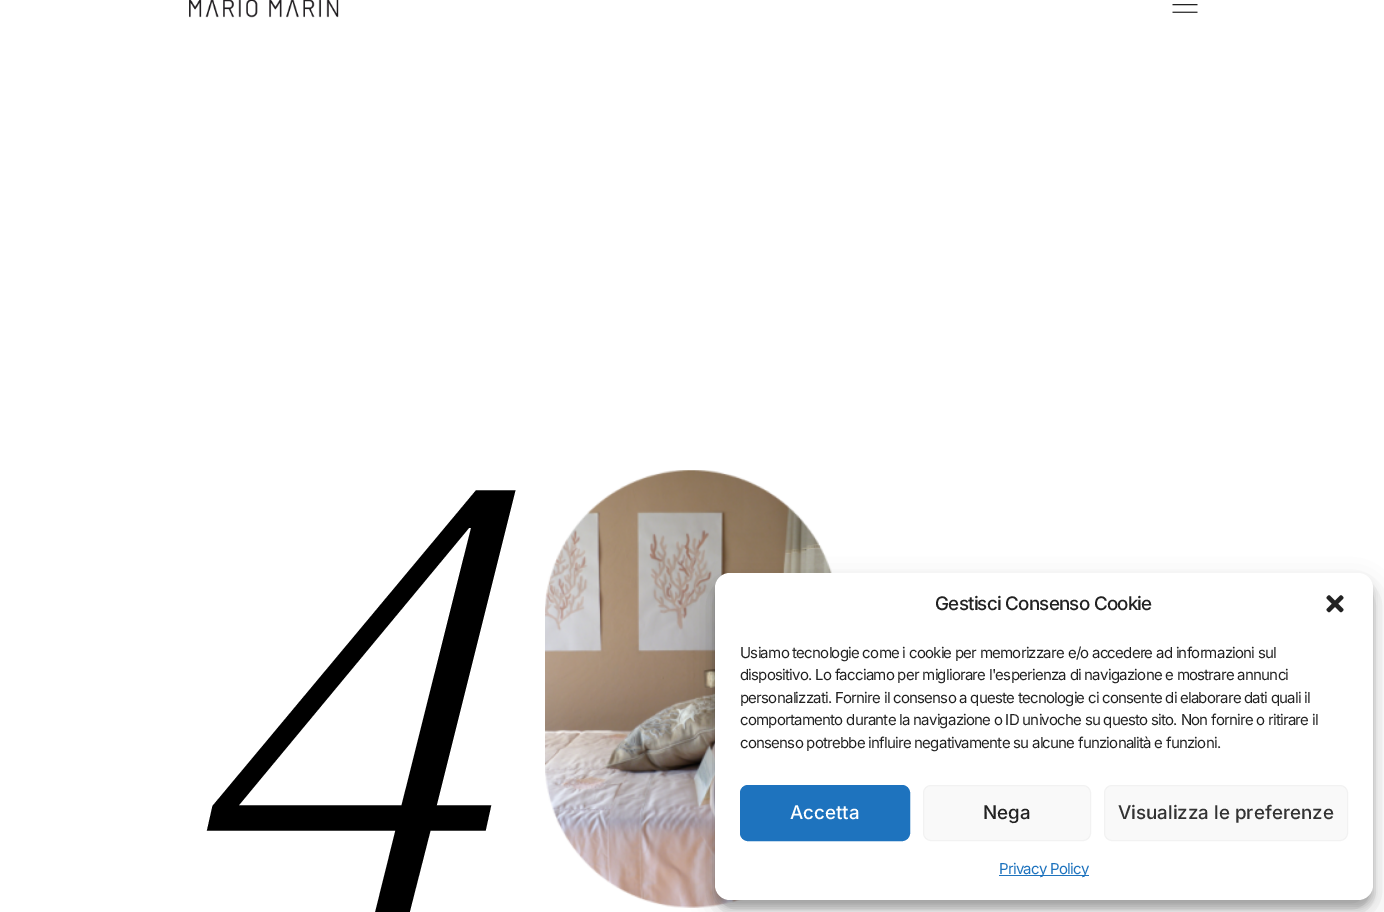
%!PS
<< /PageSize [1384 912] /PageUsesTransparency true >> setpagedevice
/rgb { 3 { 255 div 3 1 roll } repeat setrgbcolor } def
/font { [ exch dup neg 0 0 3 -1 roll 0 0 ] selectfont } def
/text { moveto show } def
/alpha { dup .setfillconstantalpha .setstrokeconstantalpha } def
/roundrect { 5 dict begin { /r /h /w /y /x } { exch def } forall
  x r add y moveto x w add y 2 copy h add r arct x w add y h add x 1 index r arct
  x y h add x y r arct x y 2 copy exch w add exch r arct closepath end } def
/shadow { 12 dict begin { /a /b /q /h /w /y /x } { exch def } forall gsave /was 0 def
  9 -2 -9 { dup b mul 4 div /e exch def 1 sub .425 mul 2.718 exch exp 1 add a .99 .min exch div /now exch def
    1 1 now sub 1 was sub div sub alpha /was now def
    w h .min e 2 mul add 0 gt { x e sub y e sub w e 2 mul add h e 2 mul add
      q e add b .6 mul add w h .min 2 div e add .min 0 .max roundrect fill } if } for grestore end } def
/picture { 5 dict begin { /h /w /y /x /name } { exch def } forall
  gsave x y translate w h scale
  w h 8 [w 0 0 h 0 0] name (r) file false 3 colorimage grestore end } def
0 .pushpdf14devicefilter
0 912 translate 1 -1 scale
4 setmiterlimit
255 255 255 rgb
0 0 1384 912 rectfill
(img_01.rgb) 189 0 150 18 picture
(img_02.rgb) 1172 4 26 9 picture
(img_03.rgb) 545 470 287 438 picture
0 0 0 rgb
715 580 658 328 15 4 0.23 shadow
715 585 658 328 15 12.5 0.19 shadow
255 255 255 rgb
715 573 658 327 15 roundrect fill
(img_04.rgb) 1326 595 18 18 picture
30 115 190 rgb
740.5 785.5 169 55 7.5 roundrect gsave fill grestore
stroke
249 249 249 rgb
923.5 785.5 167 55 7.5 roundrect gsave fill grestore
242 242 242 rgb
stroke
249 249 249 rgb
1104.5 785.5 243 55 7.5 roundrect gsave fill grestore
242 242 242 rgb
stroke
30 115 190 rgb
999 875 90 1 rectfill
/IBMPlexSerif-LightItalic 625 font
0 0 0 rgb
200 923 moveto -3 0 (4) ashow
/Inter-Medium 18.75 font
34 34 34 rgb
935 610 moveto -0.75 0 (Gestisci Consenso Cookie) ashow
/Inter-Regular 15 font
740 658 moveto -0.75 0 (Usiamo tecnologie come i cookie per memorizzare e/o accedere ad informazioni sul) ashow
740 680 moveto -0.75 0 (dispositivo. Lo facciamo per migliorare l'esperienza di navigazione e mostrare annunci) ashow
740 703 moveto -0.75 0 (personalizzati. Fornire il consenso a queste tecnologie ci consente di elaborare dati quali il) ashow
740 725 moveto -0.75 0 (comportamento durante la navigazione o ID univoche su questo sito. Non fornire o ritirare il) ashow
740 748 moveto -0.75 0 (consenso potrebbe influire negativamente su alcune funzionalità e funzioni.) ashow
/Inter-Medium 18.75 font
255 255 255 rgb
(Accetta) 790 819 text
34 34 34 rgb
(Nega) 983 819 text
51 51 51 rgb
(Visualizza le preferenze) 1118 819 text
/Inter-Regular 15 font
30 115 190 rgb
999 874 moveto -0.75 0 (Privacy Policy) ashow
.poppdf14devicefilter showpage
